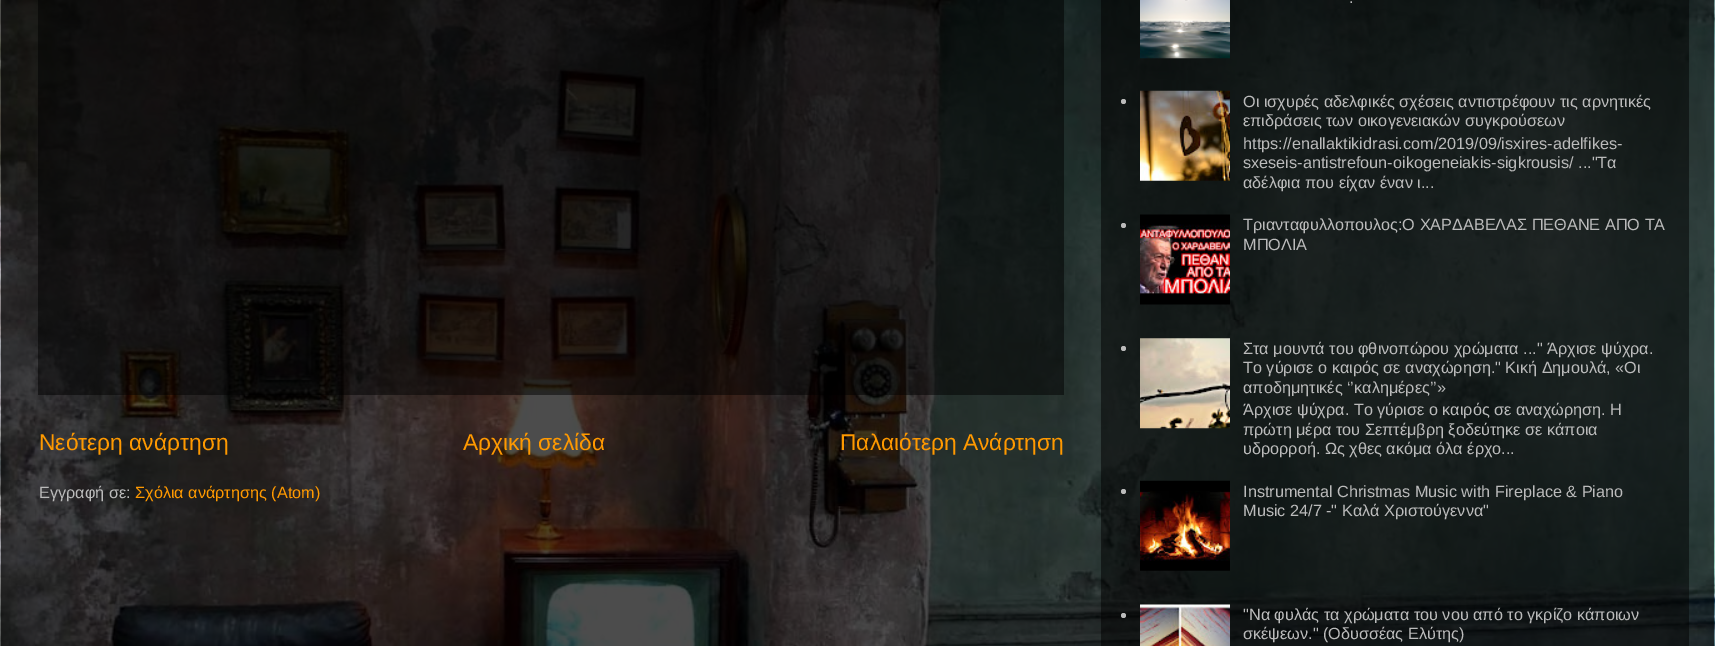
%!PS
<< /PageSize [1715 646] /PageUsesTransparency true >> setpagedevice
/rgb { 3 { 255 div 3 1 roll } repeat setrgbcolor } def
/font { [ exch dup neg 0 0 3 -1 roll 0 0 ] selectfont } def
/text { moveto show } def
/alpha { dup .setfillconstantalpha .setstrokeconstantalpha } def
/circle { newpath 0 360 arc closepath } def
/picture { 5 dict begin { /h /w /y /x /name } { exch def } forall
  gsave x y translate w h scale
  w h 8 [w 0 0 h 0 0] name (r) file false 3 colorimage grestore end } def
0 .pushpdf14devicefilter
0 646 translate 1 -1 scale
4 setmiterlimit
255 255 255 rgb
0 0 1715 646 rectfill
(img_01.rgb) 0 0 1715 646 picture
0.5 alpha
0 0 0 rgb
1101 0 588 646 rectfill
38 0 1026 395 rectfill
1 alpha
(img_02.rgb) 1140 0 90 59 picture
187 187 187 rgb
1123.5 101.5 2.5 circle fill
(img_03.rgb) 1140 90 90 91 picture
1123.5 225.5 2.5 circle fill
(img_04.rgb) 1140 214 90 91 picture
1123.5 348.5 2.5 circle fill
(img_05.rgb) 1140 338 90 91 picture
1123.5 491.5 2.5 circle fill
(img_06.rgb) 1140 480 90 91 picture
1123.5 615.5 2.5 circle fill
(img_07.rgb) 1140 604 90 42 picture
/LiberationSans-Regular 22.75 font
255 153 0 rgb
(Νεότερη ανάρτηση) 39 450 text
(Αρχική σελίδα) 463 450 text
(Παλαιότερη Ανάρτηση) 840 450 text
/LiberationSans-Regular 16.25 font
187 187 187 rgb
(Εγγραφή σε:) 39 498 text
255 153 0 rgb
(Σχόλια ανάρτησης \(Atom\)) 135 498 text
187 187 187 rgb
(.) 1349 3 text
(Οι ισχυρές αδελφικές σχέσεις αντιστρέφουν τις αρνητικές) 1243 107 text
(επιδράσεις των οικογενειακών συγκρούσεων) 1243 126 text
(https://enallaktikidrasi.com/2019/09/isxires-adelfikes-) 1243 149 text
(sxeseis-antistrefoun-oikogeneiakis-sigkrousis/ ..."Τα) 1243 168 text
(αδέλφια που είχαν έναν ι...) 1243 188 text
(Τριανταφυλλοπουλος:Ο ΧΑΡΔΑΒΕΛΑΣ ΠΕΘΑΝΕ ΑΠΟ ΤΑ) 1243 230 text
(ΜΠΟΛΙΑ) 1243 250 text
(Στα μουντά του φθινοπώρου χρώματα ..." Άρχισε ψύχρα.) 1243 354 text
(Το γύρισε ο καιρός σε αναχώρηση." Κική Δημουλά, «Οι) 1243 373 text
(αποδημητικές ‘’καλημέρες’’») 1243 393 text
(Άρχισε ψύχρα. Το γύρισε ο καιρός σε αναχώρηση. Η) 1243 415 text
(πρώτη μέρα του Σεπτέμβρη ξοδεύτηκε σε κάποια) 1243 435 text
(υδρορροή. Ως χθες ακόμα όλα έρχο...) 1243 454 text
(Instrumental Christmas Music with Fireplace & Piano) 1243 497 text
(Music 24/7 -" Καλά Χριστούγεννα") 1243 516 text
("Να φυλάς τα χρώματα του νου από το γκρίζο κάποιων) 1243 620 text
(σκέψεων." \(Οδυσσέας Ελύτης\)) 1243 639 text
.poppdf14devicefilter showpage
